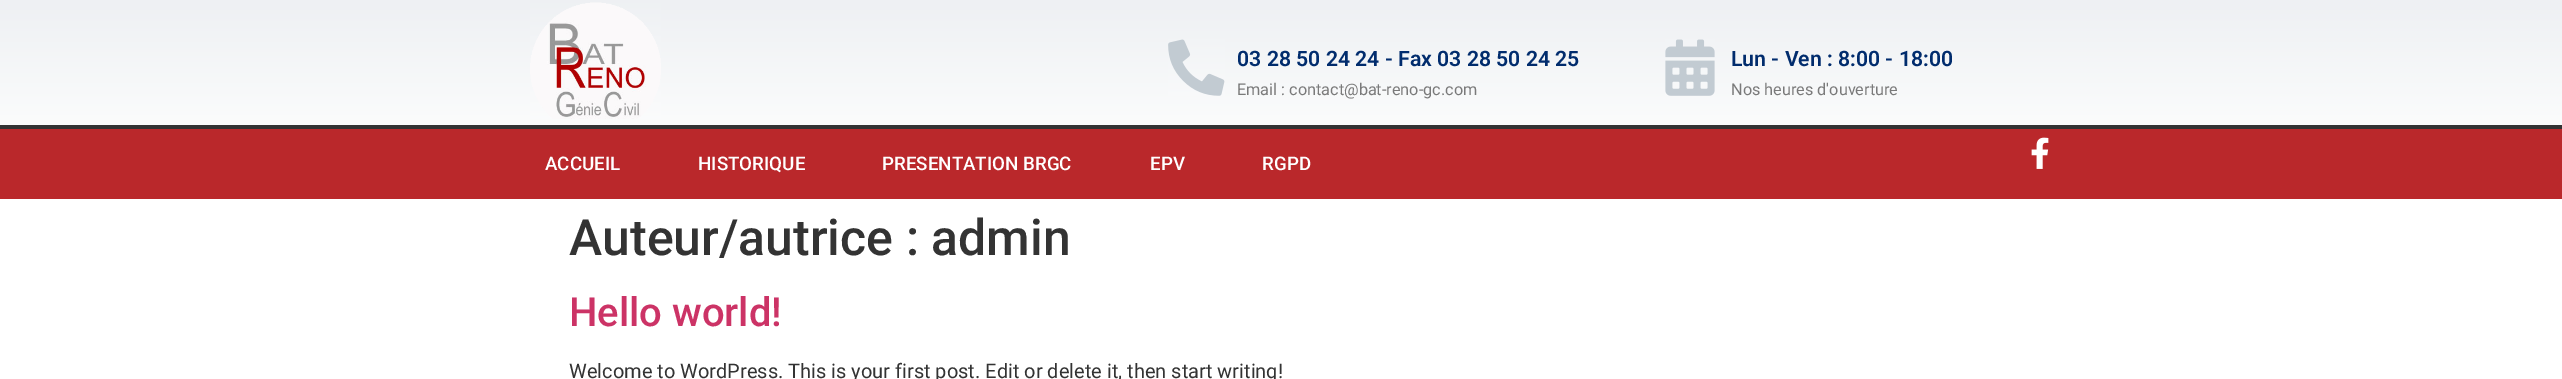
%!PS
<< /PageSize [2562 379] >> setpagedevice
/rgb { 3 { 255 div 3 1 roll } repeat setrgbcolor } def
/font { [ exch dup neg 0 0 3 -1 roll 0 0 ] selectfont } def
/text { moveto show } def
/picture { 5 dict begin { /h /w /y /x /name } { exch def } forall
  gsave x y translate w h scale
  w h 8 [w 0 0 h 0 0] name (r) file false 3 colorimage grestore end } def
0 379 translate 1 -1 scale
4 setmiterlimit
255 255 255 rgb
0 0 2562 379 rectfill
gsave 0 0 moveto 2562 0 rlineto 0 125 rlineto -2562 0 rlineto closepath clip newpath
<< /ShadingType 2 /ColorSpace /DeviceRGB /Coords [1281 -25 1281 163] /Extend [true true] /Function << /FunctionType 2 /Domain [0 1] /C0 [0.922 0.933 0.945] /C1 [1 1 1] /N 1 >> >> shfill grestore
(img_01.rgb) 530 2 131 117 picture
(img_02.rgb) 1168 39 57 57 picture
(img_03.rgb) 1665 39 50 57 picture
186 40 43 rgb
0 129 2562 70 rectfill
51 51 51 rgb
0 125 2562 4 rectfill
(img_04.rgb) 2031 137 18 32 picture
/Roboto-SemiBold 21.25 font
1 44 109 rgb
(03 28 50 24 24 - Fax 03 28 50 24 25) 1237 66 text
/Roboto-Regular 16.25 font
122 122 122 rgb
(Email : contact@bat-reno-gc.com) 1237 95 text
/Roboto-SemiBold 21.25 font
1 44 109 rgb
(Lun - Ven : 8:00 - 18:00) 1731 66 text
/Roboto-Regular 16.25 font
122 122 122 rgb
(Nos heures d'ouverture) 1731 95 text
/Roboto-Medium 18.75 font
255 255 255 rgb
(ACCUEIL) 545 170 text
(HISTORIQUE) 698 170 text
(PRESENTATION BRGC) 882 170 text
(EPV) 1150 170 text
(RGPD) 1262 170 text
/Roboto-Medium 50 font
51 51 51 rgb
(Auteur/autrice : admin) 569 255 text
/Roboto-Medium 40 font
204 51 102 rgb
(Hello world!) 569 326 text
/Roboto-Regular 20 font
51 51 51 rgb
(Welcome to WordPress. This is your first post. Edit or delete it, then start writing!) 569 378 text
showpage
